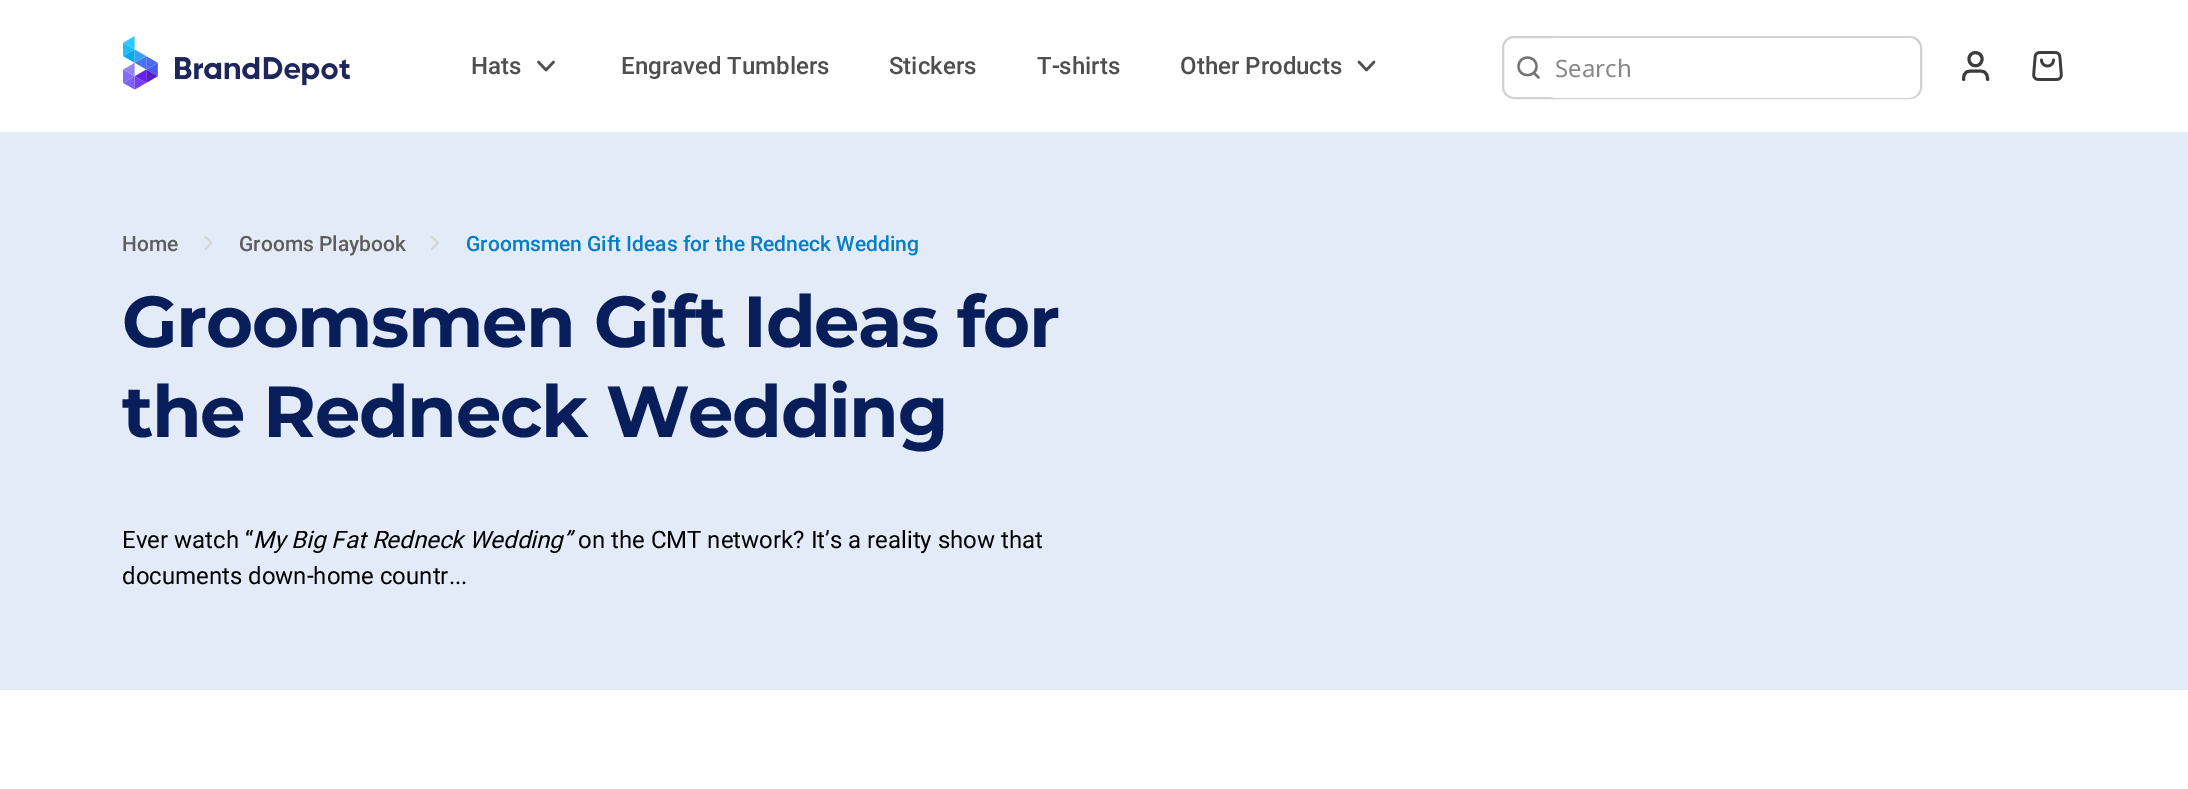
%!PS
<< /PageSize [2188 789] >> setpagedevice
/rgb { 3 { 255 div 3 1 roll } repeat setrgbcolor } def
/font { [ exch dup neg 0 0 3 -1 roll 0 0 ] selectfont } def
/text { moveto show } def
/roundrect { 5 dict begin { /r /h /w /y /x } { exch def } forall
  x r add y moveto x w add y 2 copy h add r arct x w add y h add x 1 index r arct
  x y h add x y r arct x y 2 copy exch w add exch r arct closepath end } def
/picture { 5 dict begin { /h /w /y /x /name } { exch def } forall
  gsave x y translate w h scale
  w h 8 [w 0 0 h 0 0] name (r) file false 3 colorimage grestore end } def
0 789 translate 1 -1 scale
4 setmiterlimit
255 255 255 rgb
0 0 2188 789 rectfill
(img_01.rgb) 123 36 227 54 picture
79 79 79 rgb
2.5 setlinewidth
1 setlinecap
1 setlinejoin
538.5 62 moveto 7.5 8 rlineto 7.5 -8 rlineto stroke
1359 62 moveto 7.5 8 rlineto 7.5 -8 rlineto stroke
209 209 209 rgb
2 setlinewidth
0 setlinecap
0 setlinejoin
1503 37 418 61 11 roundrect stroke
115 115 115 rgb
2.3 setlinewidth
1 setlinecap
1 setlinejoin
1538.5 77.5 moveto -5 -5 rlineto 1536.5 66.5 moveto 0 11.5 -18 11.5 -18 0 rcurveto 0 -12 18 -12 18 0 rcurveto closepath stroke
255 255 255 rgb
1544 38 376 60 12 roundrect fill
61 61 61 rgb
3 setlinewidth
1987.5 79.5 moveto 0 -9 -4.5 -8.5 -12 -8.5 rcurveto -7.5 0 -12 -0.5 -12 8.5 rcurveto 1982 59 moveto 0 9 -13 9 -13 0 rcurveto 0 -8.5 13 -8.5 13 0 rcurveto closepath stroke
(img_02.rgb) 2032 51 31 30 picture
226 235 247 rgb
0 132 2188 558 rectfill
214 214 214 rgb
2 setlinewidth
205.5 249 moveto 6 -6 rlineto -6 -6 rlineto stroke
432 249 moveto 6 -6 rlineto -6 -6 rlineto stroke
/Roboto-Medium 24 font
79 79 79 rgb
(Hats) 471 74 text
(Engraved Tumblers) 621 74 text
(Stickers) 889 74 text
(T-shirts) 1037 74 text
(Other Products) 1180 74 text
/NotoSans-Regular 24 font
136 136 136 rgb
(Search) 1555 77 text
/Roboto-Medium 21 font
93 93 93 rgb
(Home) 122 251 text
(Grooms Playbook) 239 251 text
4 127 197 rgb
(Groomsmen Gift Ideas for the Redneck Wedding) 466 251 text
/Montserrat-Bold 72 font
7 30 91 rgb
122 347 moveto -1.4 0 (Groomsmen Gift Ideas for) ashow
122 437 moveto -1.4 0 (the Redneck Wedding) ashow
/Roboto-Regular 24 font
0 0 0 rgb
(Ever watch “) 122 548 text
/Roboto-Italic 24 font
(My Big Fat Redneck Wedding”) 253 548 text
/Roboto-Regular 24 font
(on the CMT network? It’s a reality show that) 578 548 text
(documents down-home countr...) 122 584 text
showpage
